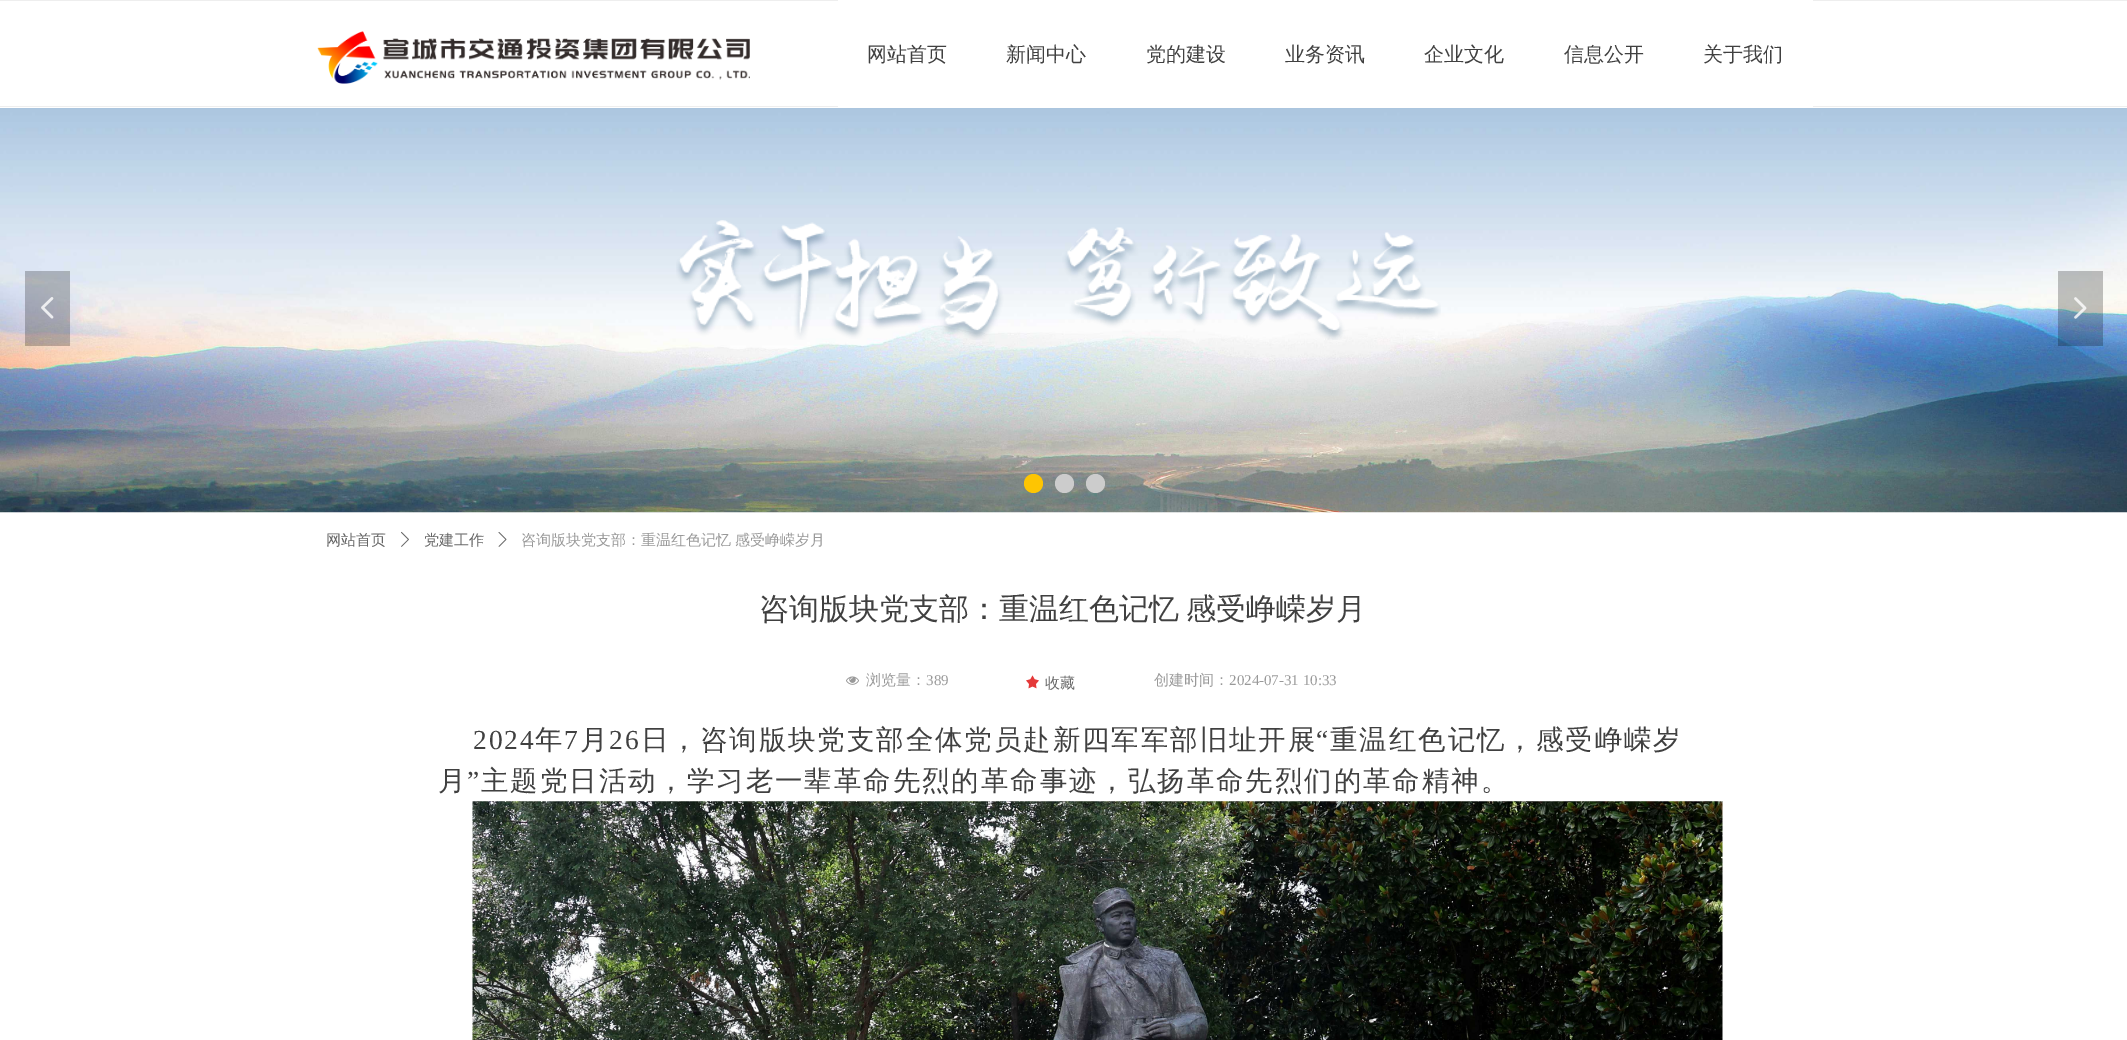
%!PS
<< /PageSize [2127 1040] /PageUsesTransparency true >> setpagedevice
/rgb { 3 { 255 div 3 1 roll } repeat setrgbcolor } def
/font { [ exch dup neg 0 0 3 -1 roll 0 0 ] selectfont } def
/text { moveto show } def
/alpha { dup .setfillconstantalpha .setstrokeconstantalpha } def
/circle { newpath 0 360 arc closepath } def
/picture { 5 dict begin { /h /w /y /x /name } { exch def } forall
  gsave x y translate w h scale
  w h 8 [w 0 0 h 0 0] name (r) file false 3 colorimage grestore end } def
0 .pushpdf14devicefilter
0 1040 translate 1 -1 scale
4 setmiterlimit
255 255 255 rgb
0 0 2127 1040 rectfill
238 238 238 rgb
0 0 2127 1 rectfill
0 106 2127 1 rectfill
(img_01.rgb) 317 31 433 53 picture
255 255 255 rgb
838 0 975 107 rectfill
(img_02.rgb) 0 108 2127 405 picture
(img_03.rgb) 676 220 765 120 picture
0.24 alpha
0 0 0 rgb
25 271 45 75 rectfill
1 alpha
(img_04.rgb) 41 297 13 22 picture
0.24 alpha
2058 271 45 75 rectfill
1 alpha
(img_05.rgb) 2074 297 13 22 picture
254 197 2 rgb
1033.5 483.5 9.5 circle fill
204 204 204 rgb
1064.5 483.5 9.5 circle fill
1095.5 483.5 9.5 circle fill
(img_06.rgb) 401 531 8 16 picture
(img_07.rgb) 498 532 9 15 picture
(img_08.rgb) 846 676 13 9 picture
(img_09.rgb) 1026 675 13 14 picture
(img_10.rgb) 472 801 1251 239 picture
/WenQuanYiZenHei-Medium 20 font
64 64 64 rgb
(网站首页) 867 61 text
(新闻中心) 1006 61 text
(党的建设) 1146 61 text
(业务资讯) 1285 61 text
(企业文化) 1424 61 text
(信息公开) 1564 61 text
(关于我们) 1703 61 text
/WenQuanYiZenHei-Medium 15 font
102 102 102 rgb
(网站首页) 326 545 text
(党建工作) 424 545 text
153 153 153 rgb
(咨询版块党支部：重温红色记忆) 521 545 text
(感受峥嵘岁月) 735 545 text
/WenQuanYiZenHei-Medium 30 font
64 64 64 rgb
(咨询版块党支部：重温红色记忆) 759 619 text
(感受峥嵘岁月) 1186 619 text
/WenQuanYiZenHei-Medium 15 font
153 153 153 rgb
(浏览量：) 866 685 text
/LiberationSerif-Regular 15 font
(389) 926 685 text
/WenQuanYiZenHei-Medium 15 font
102 102 102 rgb
(收藏) 1045 688 text
153 153 153 rgb
(创建时间：) 1154 685 text
/LiberationSerif-Regular 15 font
(2024-07-31 10:33) 1229 685 text
/LiberationSerif-Regular 27.5 font
64 64 64 rgb
473 749 moveto 1.9 0 (2024) ashow
/WenQuanYiZenHei-Medium 27.5 font
535 749 moveto 1.9 0 (年) ashow
/LiberationSerif-Regular 27.5 font
564 749 moveto 1.9 0 (7) ashow
/WenQuanYiZenHei-Medium 27.5 font
580 749 moveto 1.9 0 (月) ashow
/LiberationSerif-Regular 27.5 font
609 749 moveto 1.9 0 (26) ashow
/WenQuanYiZenHei-Medium 27.5 font
641 749 moveto 1.9 0 (日，咨询版块党支部全体党员赴新四军军部旧址开展) ashow
/LiberationSerif-Regular 27.5 font
1316 749 moveto 1.9 0 (“) ashow
/WenQuanYiZenHei-Medium 27.5 font
1330 749 moveto 1.9 0 (重温红色记忆，感受峥嵘岁) ashow
438 790 moveto 1.9 0 (月) ashow
/LiberationSerif-Regular 27.5 font
467 790 moveto 1.9 0 (”) ashow
/WenQuanYiZenHei-Medium 27.5 font
481 790 moveto 1.9 0 (主题党日活动，学习老一辈革命先烈的革命事迹，弘扬革命先烈们的革命精神。) ashow
.poppdf14devicefilter showpage
